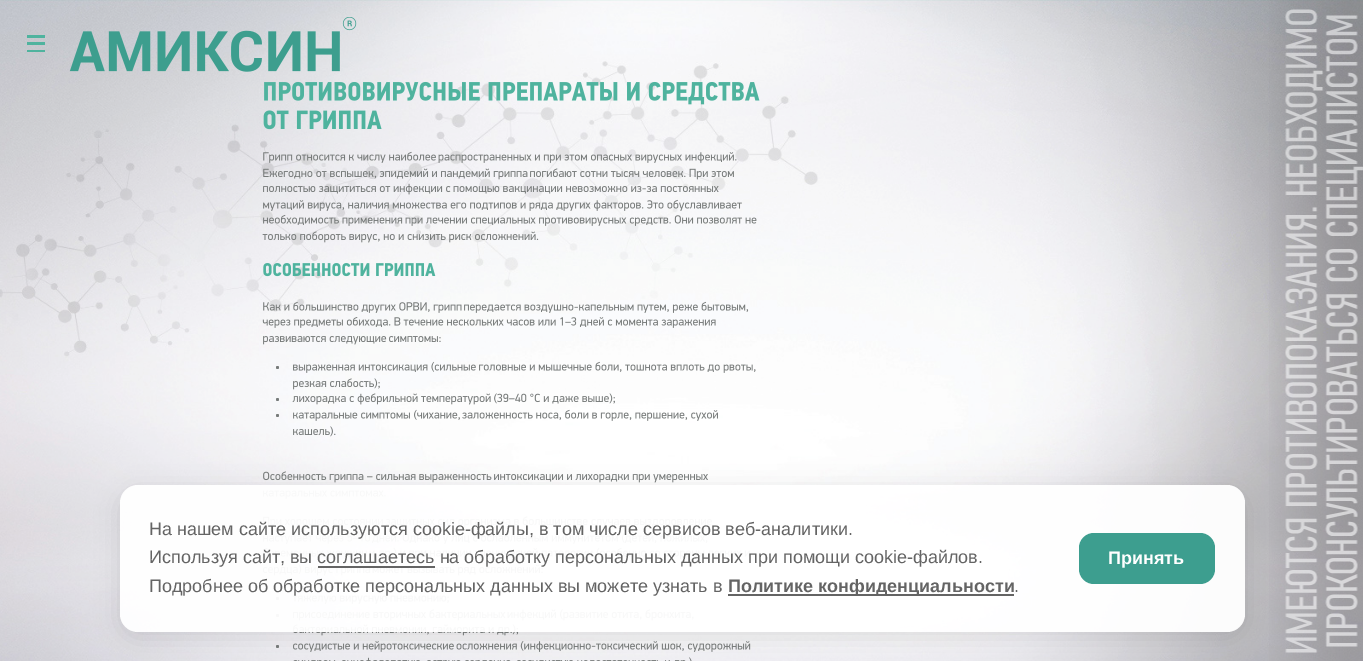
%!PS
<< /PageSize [1363 661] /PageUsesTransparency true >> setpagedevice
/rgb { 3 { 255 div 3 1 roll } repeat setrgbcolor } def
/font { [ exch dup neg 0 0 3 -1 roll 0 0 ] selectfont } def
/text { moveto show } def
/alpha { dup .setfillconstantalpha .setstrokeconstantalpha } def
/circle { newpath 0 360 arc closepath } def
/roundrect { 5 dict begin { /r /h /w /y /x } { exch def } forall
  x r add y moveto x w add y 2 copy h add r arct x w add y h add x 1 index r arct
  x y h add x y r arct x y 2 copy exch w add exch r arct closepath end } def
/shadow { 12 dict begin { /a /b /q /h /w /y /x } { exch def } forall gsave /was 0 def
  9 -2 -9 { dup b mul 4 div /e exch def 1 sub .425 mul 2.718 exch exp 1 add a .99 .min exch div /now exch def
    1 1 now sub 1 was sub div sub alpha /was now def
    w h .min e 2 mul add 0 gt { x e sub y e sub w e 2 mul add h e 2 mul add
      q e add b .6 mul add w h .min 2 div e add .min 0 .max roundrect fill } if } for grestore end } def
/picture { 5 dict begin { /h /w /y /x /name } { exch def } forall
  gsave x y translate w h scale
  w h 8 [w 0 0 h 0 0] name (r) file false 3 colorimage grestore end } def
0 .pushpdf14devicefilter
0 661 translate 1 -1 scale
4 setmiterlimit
255 255 255 rgb
0 0 1363 661 rectfill
(img_01.rgb) 0 0 1363 661 picture
(img_02.rgb) 264 81 496 24 picture
(img_03.rgb) 263 110 119 20 picture
(img_04.rgb) 263 151 173 12 picture
(img_05.rgb) 438 152 299 11 picture
(img_06.rgb) 263 168 114 11 picture
(img_07.rgb) 379 168 149 12 picture
(img_08.rgb) 530 168 204 12 picture
(img_09.rgb) 263 183 188 12 picture
(img_10.rgb) 453 186 266 8 picture
(img_11.rgb) 263 199 479 12 picture
(img_12.rgb) 263 214 140 12 picture
(img_13.rgb) 405 215 352 11 picture
(img_14.rgb) 262 231 277 12 picture
(img_15.rgb) 263 263 173 14 picture
(img_16.rgb) 263 301 96 10 picture
(img_17.rgb) 361 302 101 11 picture
(img_18.rgb) 464 301 285 12 picture
(img_19.rgb) 262 317 139 11 picture
(img_20.rgb) 403 317 313 11 picture
(img_21.rgb) 263 336 124 9 picture
(img_22.rgb) 389 336 52 7 picture
119 123 122 rgb
277.5 367.5 1.5 circle fill
(img_23.rgb) 293 361 183 12 picture
(img_24.rgb) 479 361 277 12 picture
(img_25.rgb) 293 378 87 12 picture
277.5 399.5 1.5 circle fill
(img_26.rgb) 292 393 199 12 picture
(img_27.rgb) 494 393 121 11 picture
277.5 415.5 1.5 circle fill
(img_28.rgb) 293 409 167 12 picture
(img_29.rgb) 462 409 256 12 picture
(img_30.rgb) 293 426 43 11 picture
(img_31.rgb) 263 471 229 12 picture
(img_32.rgb) 494 474 214 9 picture
(img_33.rgb) 263 490 123 9 picture
(img_34.rgb) 263 516 120 12 picture
(img_35.rgb) 385 516 327 12 picture
(img_36.rgb) 263 533 108 11 picture
(img_37.rgb) 372 532 336 12 picture
(img_38.rgb) 263 547 104 12 picture
(img_39.rgb) 369 547 381 12 picture
(img_40.rgb) 263 564 108 12 picture
(img_41.rgb) 372 564 171 12 picture
277.5 598.5 1.5 circle fill
(img_42.rgb) 292 595 157 9 picture
277.5 615.5 1.5 circle fill
(img_43.rgb) 293 609 213 12 picture
(img_44.rgb) 507 609 187 12 picture
(img_45.rgb) 293 624 226 12 picture
277.5 646.5 1.5 circle fill
(img_46.rgb) 293 641 161 11 picture
(img_47.rgb) 456 641 295 11 picture
(img_48.rgb) 293 657 127 4 picture
(img_49.rgb) 427 657 265 4 picture
79 179 158 rgb
27 42 18 3 rectfill
27 35 18 3 rectfill
27 50 18 2 rectfill
(img_50.rgb) 69 17 288 55 picture
(img_51.rgb) 1269 0 94 661 picture
gsave
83 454 moveto 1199 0 rlineto 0 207 rlineto -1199 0 rlineto closepath 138 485 moveto 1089 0 rlineto 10 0 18 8 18 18 rcurveto 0 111 rlineto 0 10 -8 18 -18 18 rcurveto -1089 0 rlineto -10 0 -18 -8 -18 -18 rcurveto 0 -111 rlineto 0 -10 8 -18 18 -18 rcurveto closepath eoclip newpath
61 61 61 rgb
120 491 1125 147 18 12 0.15 shadow
grestore
0.95 alpha
255 255 255 rgb
120 485 1125 147 18 roundrect fill
1 alpha
100 100 100 rgb
318 566 117 2 rectfill
728 594 286 2 rectfill
61 158 143 rgb
1079 533 136 51 15 roundrect fill
/LiberationSans-Regular 18 font
100 100 100 rgb
(На нашем сайте используются cookie-файлы, в том числе сервисов веб-аналитики.) 149 535 text
(Используя сайт, вы соглашаетесь на обработку персональных данных при помощи cookie-файлов.) 149 563 text
(Подробнее об обработке персональных данных вы можете узнать в) 149 592 text
/LiberationSans-Bold 18 font
(Политике конфиденциальности) 728 592 text
/LiberationSans-Regular 18 font
(.) 1014 592 text
/LiberationSans-Bold 18 font
255 255 255 rgb
(Принять) 1108 564 text
.poppdf14devicefilter showpage
